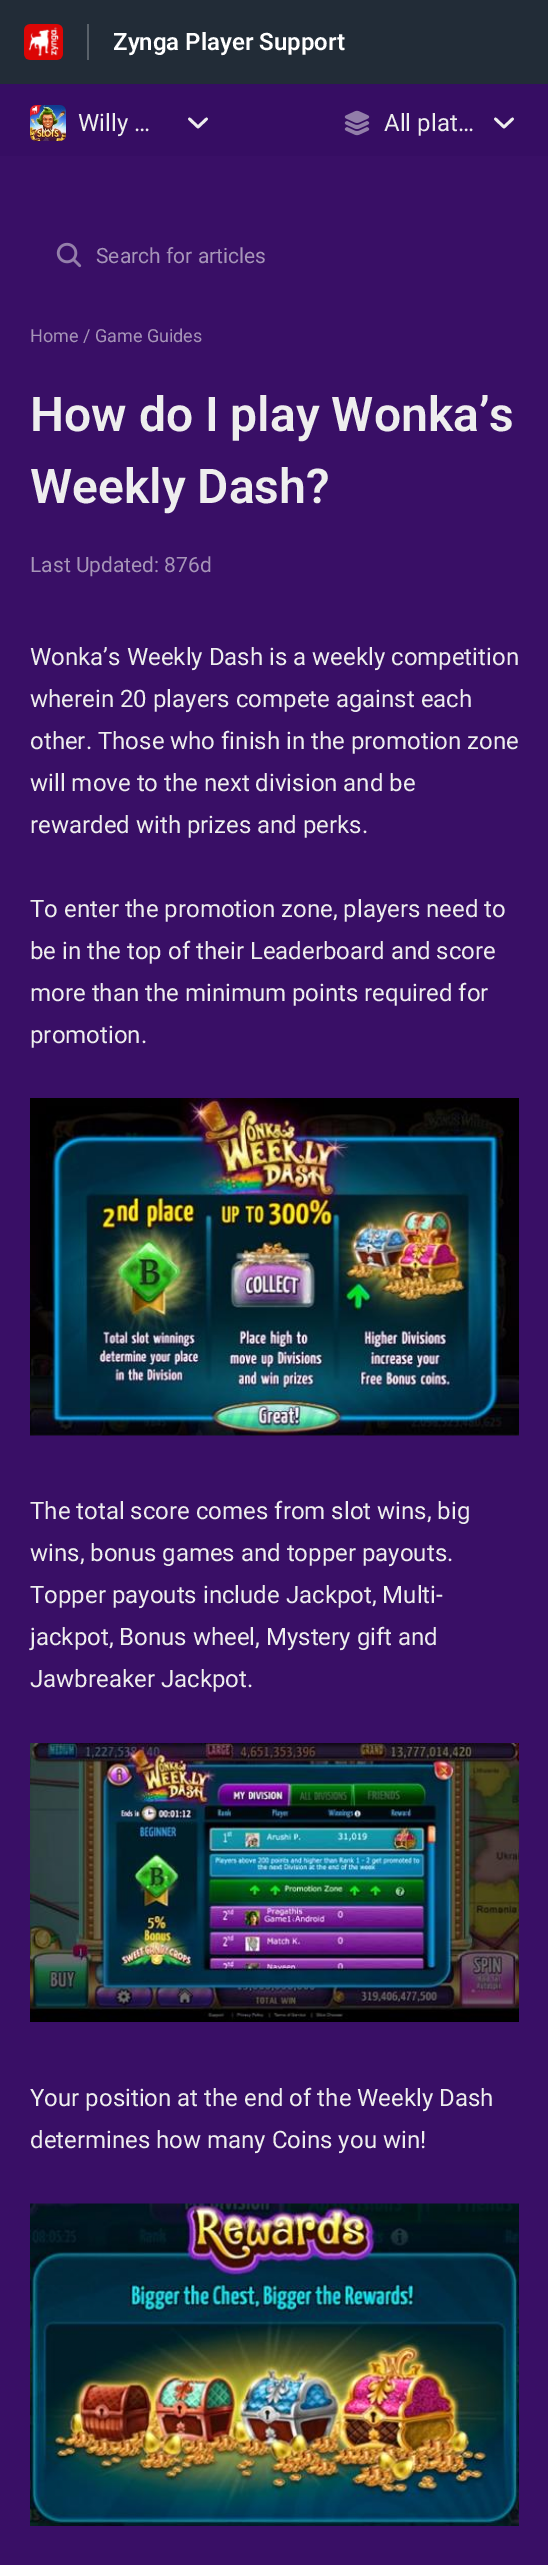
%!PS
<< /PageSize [548 2565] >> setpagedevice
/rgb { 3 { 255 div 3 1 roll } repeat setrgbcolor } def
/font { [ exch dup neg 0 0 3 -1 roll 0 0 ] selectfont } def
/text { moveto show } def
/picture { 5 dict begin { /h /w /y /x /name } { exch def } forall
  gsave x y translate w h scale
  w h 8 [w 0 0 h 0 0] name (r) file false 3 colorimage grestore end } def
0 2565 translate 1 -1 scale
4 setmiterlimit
54 13 99 rgb
0 0 548 2565 rectfill
34 44 55 rgb
0 0 548 84 rectfill
89 97 105 rgb
87 24 2 36 rectfill
(img_01.rgb) 24 24 39 36 picture
(img_02.rgb) 30 105 36 36 picture
238 238 238 rgb
2.8 setlinewidth
1 setlinecap
1 setlinejoin
189.5 119 moveto 8.5 8 rlineto 8.5 -8 rlineto stroke
(img_03.rgb) 344 110 26 26 picture
495.5 119 moveto 8.5 8 rlineto 8.5 -8 rlineto stroke
57 15 102 rgb
0 156 548 2409 rectfill
(img_04.rgb) 56 242 26 26 picture
(img_05.rgb) 30 1098 489 338 picture
(img_06.rgb) 30 1743 489 279 picture
(img_07.rgb) 30 2203 489 323 picture
/Roboto-SemiBold 24 font
255 255 255 rgb
(Zynga Player Support) 113 50 text
/Roboto-Regular 24 font
238 238 238 rgb
(Willy …) 78 131 text
(All plat…) 384 131 text
/Roboto-Regular 21 font
166 149 184 rgb
(Search for articles) 96 263 text
/Roboto-Regular 18 font
(Home / Game Guides) 30 342 text
/Roboto-SemiBold 48 font
238 238 238 rgb
(How do I play Wonka’s) 30 431 text
(Weekly Dash?) 30 503 text
/Roboto-Regular 21 font
166 149 184 rgb
(Last Updated: 876d) 30 572 text
/Roboto-Regular 24 font
238 238 238 rgb
(Wonka’s Weekly Dash is a weekly competition) 30 665 text
(wherein 20 players compete against each) 30 707 text
(other. Those who finish in the promotion zone) 30 749 text
(will move to the next division and be) 30 791 text
(rewarded with prizes and perks.) 30 833 text
(To enter the promotion zone, players need to) 30 917 text
(be in the top of their Leaderboard and score) 30 959 text
(more than the minimum points required for) 30 1001 text
(promotion.) 30 1043 text
(The total score comes from slot wins, big) 30 1519 text
(wins, bonus games and topper payouts.) 30 1561 text
(Topper payouts include Jackpot, Multi-) 30 1603 text
(jackpot, Bonus wheel, Mystery gift and) 30 1645 text
(Jawbreaker Jackpot.) 30 1687 text
(Your position at the end of the Weekly Dash) 30 2106 text
(determines how many Coins you win!) 30 2148 text
showpage
